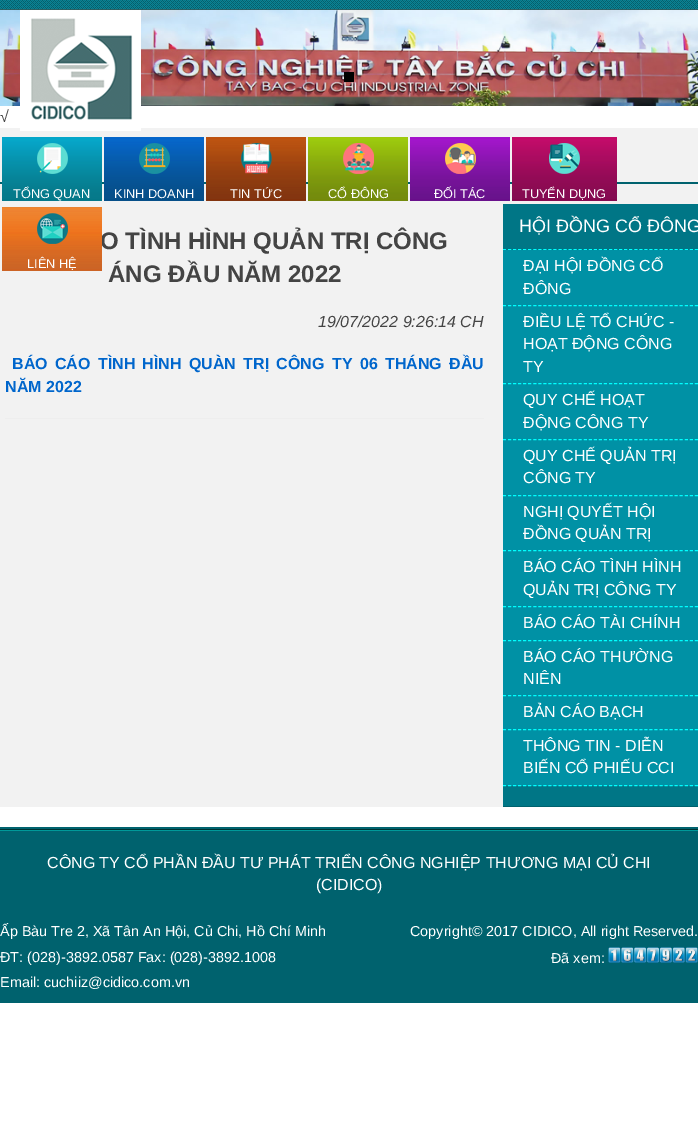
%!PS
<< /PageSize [698 1130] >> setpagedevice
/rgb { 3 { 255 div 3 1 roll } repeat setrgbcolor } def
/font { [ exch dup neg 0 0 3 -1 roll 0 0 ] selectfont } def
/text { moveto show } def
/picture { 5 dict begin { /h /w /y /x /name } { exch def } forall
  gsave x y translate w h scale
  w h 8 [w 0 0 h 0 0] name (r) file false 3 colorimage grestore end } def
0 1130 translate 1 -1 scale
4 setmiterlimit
255 255 255 rgb
0 0 698 1130 rectfill
(img_01.rgb) 0 0 698 10 picture
(img_02.rgb) 0 10 698 96 picture
0 0 0 rgb
344 72 10 10 rectfill
242 242 242 rgb
0 128 698 679 rectfill
(img_03.rgb) 20 10 121 121 picture
0 98 110 rgb
0 182 698 2 rectfill
(img_04.rgb) 2 137 100 64 picture
(img_05.rgb) 37 143 31 31 picture
(img_06.rgb) 104 137 100 64 picture
(img_07.rgb) 139 143 31 31 picture
(img_08.rgb) 206 137 100 64 picture
(img_09.rgb) 241 143 31 31 picture
(img_10.rgb) 308 137 100 64 picture
(img_11.rgb) 343 143 31 31 picture
(img_12.rgb) 410 137 100 64 picture
(img_13.rgb) 445 143 31 31 picture
(img_14.rgb) 512 137 105 64 picture
(img_15.rgb) 549 143 31 31 picture
238 238 238 rgb
5 418 479 1 rectfill
0 118 134 rgb
503 204 195 602 rectfill
0 255 255 rgb
[3 2.05] 0 setdash
503 249.5 moveto 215 0 rlineto stroke
0 145 165 rgb
503 250 195 536 rectfill
0 255 255 rgb
503 305.5 moveto 195 0 rlineto stroke
503 383.5 moveto 195 0 rlineto stroke
503 439.5 moveto 195 0 rlineto stroke
503 495.5 moveto 195 0 rlineto stroke
503 550.5 moveto 195 0 rlineto stroke
503 606.5 moveto 195 0 rlineto stroke
503 640.5 moveto 195 0 rlineto stroke
503 695.5 moveto 195 0 rlineto stroke
503 729.5 moveto 195 0 rlineto stroke
503 785.5 moveto 195 0 rlineto stroke
0 98 110 rgb
503 806 195 1 rectfill
0 827 698 176 rectfill
(img_18.rgb) 0 829 698 2 picture
(img_19.rgb) 608 947 90 16 picture
/LiberationSans-Regular 16 font
68 68 68 rgb
(√) 0 122 text
/LiberationSans-Regular 12.75 font
255 255 255 rgb
(TỔNG QUAN) 13 198 text
(KINH DOANH) 114 198 text
(TIN TỨC) 230 198 text
(CỔ ĐÔNG) 328 198 text
(ĐỐI TÁC) 434 198 text
(TUYỂN DỤNG) 522 198 text
/LiberationSans-Bold 24 font
68 68 68 rgb
(O TÌNH HÌNH QUẢN TRỊ CÔNG) 100 249 text
(img_16.rgb) 2 207 100 64 picture
/LiberationSans-Regular 12.75 font
255 255 255 rgb
(LIÊN HỆ) 27 268 text
(img_17.rgb) 37 213 31 31 picture
/LiberationSans-Bold 24 font
68 68 68 rgb
(ÁNG ĐẦU NĂM 2022) 108 282 text
/LiberationSans-Italic 16 font
(19/07/2022 9:26:14 CH) 318 327 text
/LiberationSans-Bold 16 font
0 102 204 rgb
12 369 moveto 2.9 0 32 (BÁO CÁO TÌNH HÌNH QUÀN TRỊ CÔNG TY 06 THÁNG ĐẦU) widthshow
(NĂM 2022) 5 392 text
/LiberationSans-Regular 18 font
255 255 255 rgb
(HỘI ĐỒNG CỔ ĐÔNG) 519 232 text
/LiberationSans-Regular 16 font
(ĐẠI HỘI ĐỒNG CỔ) 523 271 text
(ĐÔNG) 523 294 text
(ĐIỀU LỆ TỔ CHỨC -) 523 327 text
(HOẠT ĐỘNG CÔNG) 523 349 text
(TY) 523 372 text
(QUY CHẾ HOẠT) 523 405 text
(ĐỘNG CÔNG TY) 523 428 text
(QUY CHẾ QUẢN TRỊ) 523 461 text
(CÔNG TY) 523 483 text
(NGHỊ QUYẾT HỘI) 523 517 text
(ĐỒNG QUẢN TRỊ) 523 539 text
(BÁO CÁO TÌNH HÌNH) 523 572 text
(QUẢN TRỊ CÔNG TY) 523 595 text
(BÁO CÁO TÀI CHÍNH) 523 628 text
(BÁO CÁO THƯỜNG) 523 662 text
(NIÊN) 523 684 text
(BẢN CÁO BẠCH) 523 717 text
(THÔNG TIN - DIỄN) 523 751 text
(BIẾN CỔ PHIẾU CCI) 523 773 text
(CÔNG TY CỔ PHẦN ĐẦU TƯ PHÁT TRIỂN CÔNG NGHIỆP THƯƠNG MẠI CỦ CHI) 47 868 text
(\(CIDICO\)) 316 890 text
/LiberationSans-Regular 14.4 font
(Ấp Bàu Tre 2, Xã Tân An Hội, Củ Chi, Hồ Chí Minh) 0 936 text
(ĐT: \(028\)-3892.0587 Fax: \(028\)-3892.1008) 0 962 text
(Email: cuchiiz@cidico.com.vn) 0 987 text
(Copyright© 2017 CIDICO, All right Reserved.) 410 936 text
(Đã xem:) 551 963 text
showpage
